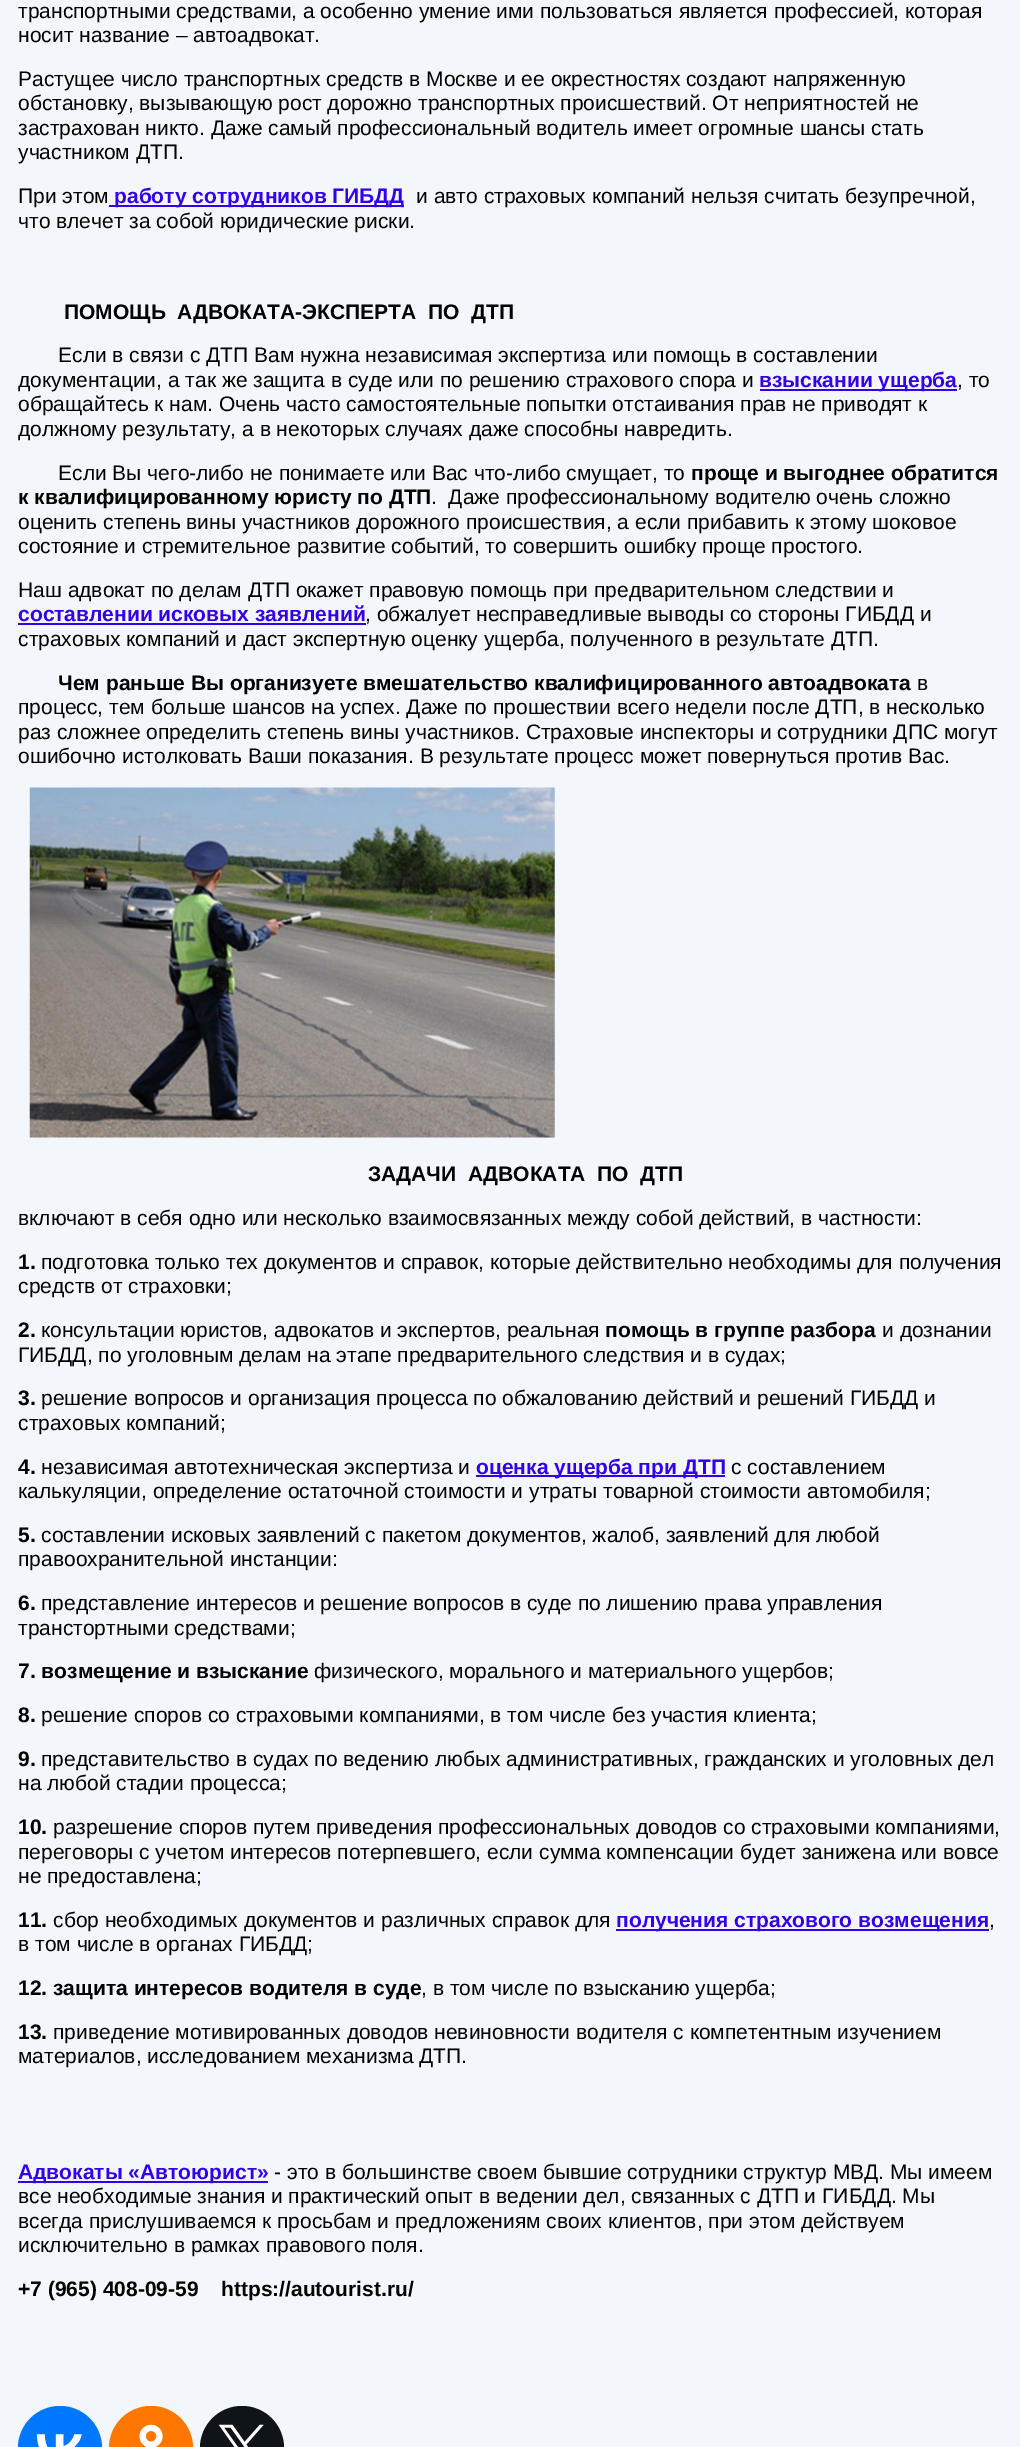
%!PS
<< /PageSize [1020 2447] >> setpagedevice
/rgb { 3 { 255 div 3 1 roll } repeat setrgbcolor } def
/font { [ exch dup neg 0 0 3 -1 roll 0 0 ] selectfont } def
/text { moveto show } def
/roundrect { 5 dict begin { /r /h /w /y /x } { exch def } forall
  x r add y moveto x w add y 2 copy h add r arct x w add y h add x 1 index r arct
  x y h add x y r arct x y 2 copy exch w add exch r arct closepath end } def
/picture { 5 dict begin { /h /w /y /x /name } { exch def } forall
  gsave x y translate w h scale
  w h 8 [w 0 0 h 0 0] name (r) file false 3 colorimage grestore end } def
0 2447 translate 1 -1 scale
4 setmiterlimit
243 246 251 rgb
0 0 1020 2447 rectfill
51 0 238 rgb
109 205 295 2 rectfill
760 389 197 2 rectfill
18 623 348 2 rectfill
(img_01.rgb) 29 787 526 351 picture
476 1475 249 2 rectfill
616 1929 373 2 rectfill
18 2181 250 2 rectfill
0 119 255 rgb
18 2406 84 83 42 roundrect fill
(img_02.rgb) 36 2434 46 13 picture
255 119 0 rgb
109 2406 84 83 42 roundrect fill
(img_03.rgb) 139 2424 24 23 picture
15 20 25 rgb
200 2406 84 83 42 roundrect fill
(img_04.rgb) 218 2424 46 23 picture
/LiberationSans-Regular 21 font
0 0 0 rgb
(транспортными средствами, а особенно умение ими пользоваться является профессией, которая) 18 18 text
(носит название – автоадвокат.) 18 42 text
(Растущее число транспортных средств в Москве и ее окрестностях создают напряженную) 18 86 text
(обстановку, вызывающую рост дорожно транспортных происшествий. От неприятностей не) 18 110 text
(застрахован никто. Даже самый профессиональный водитель имеет огромные шансы стать) 18 135 text
(участником ДТП.) 18 159 text
(При этом) 18 203 text
/LiberationSans-Bold 21 font
51 0 238 rgb
(работу сотрудников ГИБДД) 114 203 text
/LiberationSans-Regular 21 font
0 0 0 rgb
(и авто страховых компаний нельзя считать безупречной,) 416 203 text
(что влечет за собой юридические риски.) 18 228 text
/LiberationSans-Bold 21 font
(ПОМОЩЬ  АДВОКАТА-ЭКСПЕРТА  ПО  ДТП) 64 319 text
/LiberationSans-Regular 21 font
(Если в связи с ДТП Вам нужна независимая экспертиза или помощь в составлении) 58 362 text
(документации, а так же защита в суде или по решению страхового спора и) 18 387 text
/LiberationSans-Bold 21 font
51 0 238 rgb
(взыскании ущерба) 759 387 text
/LiberationSans-Regular 21 font
0 0 0 rgb
(, то) 957 387 text
(обращайтесь к нам. Очень часто самостоятельные попытки отстаивания прав не приводят к) 18 411 text
(должному результату, а в некоторых случаях даже способны навредить.) 18 436 text
(Если Вы чего-либо не понимаете или Вас что-либо смущает, то) 58 480 text
/LiberationSans-Bold 21 font
(проще и выгоднее обратится) 691 480 text
(к квалифицированному юристу по ДТП) 18 504 text
/LiberationSans-Regular 21 font
(.  Даже профессиональному водителю очень сложно) 431 504 text
(оценить степень вины участников дорожного происшествия, а если прибавить к этому шоковое) 18 529 text
(состояние и стремительное развитие событий, то совершить ошибку проще простого.) 18 553 text
(Наш адвокат по делам ДТП окажет правовую помощь при предварительном следствии и) 18 597 text
/LiberationSans-Bold 21 font
51 0 238 rgb
(составлении исковых заявлений) 18 621 text
/LiberationSans-Regular 21 font
0 0 0 rgb
(, обжалует несправедливые выводы со стороны ГИБДД и) 365 621 text
(страховых компаний и даст экспертную оценку ущерба, полученного в результате ДТП.) 18 646 text
/LiberationSans-Bold 21 font
(Чем раньше Вы организуете вмешательство квалифицированного автоадвоката) 58 690 text
/LiberationSans-Regular 21 font
(в) 917 690 text
(процесс, тем больше шансов на успех. Даже по прошествии всего недели после ДТП, в несколько) 18 714 text
(раз сложнее определить степень вины участников. Страховые инспекторы и сотрудники ДПС могут) 18 739 text
(ошибочно истолковать Ваши показания. В результате процесс может повернуться против Вас.) 18 763 text
/LiberationSans-Bold 21 font
(ЗАДАЧИ  АДВОКАТА  ПО  ДТП) 368 1181 text
/LiberationSans-Regular 21 font
(включают в себя одно или несколько взаимосвязанных между собой действий, в частности:) 18 1225 text
/LiberationSans-Bold 21 font
(1.) 18 1269 text
/LiberationSans-Regular 21 font
(подготовка только тех документов и справок, которые действительно необходимы для получения) 41 1269 text
(средств от страховки;) 18 1293 text
/LiberationSans-Bold 21 font
(2.) 18 1337 text
/LiberationSans-Regular 21 font
(консультации юристов, адвокатов и экспертов, реальная) 41 1337 text
/LiberationSans-Bold 21 font
(помощь в группе разбора) 605 1337 text
/LiberationSans-Regular 21 font
(и дознании) 882 1337 text
(ГИБДД, по уголовным делам на этапе предварительного следствия и в судах;) 18 1362 text
/LiberationSans-Bold 21 font
(3.) 18 1405 text
/LiberationSans-Regular 21 font
(решение вопросов и организация процесса по обжалованию действий и решений ГИБДД и) 41 1405 text
(страховых компаний;) 18 1430 text
/LiberationSans-Bold 21 font
(4.) 18 1474 text
/LiberationSans-Regular 21 font
(независимая автотехническая экспертиза и) 41 1474 text
/LiberationSans-Bold 21 font
51 0 238 rgb
(оценка ущерба при ДТП) 476 1474 text
/LiberationSans-Regular 21 font
0 0 0 rgb
(с составлением) 731 1474 text
(калькуляции, определение остаточной стоимости и утраты товарной стоимости автомобиля;) 18 1498 text
/LiberationSans-Bold 21 font
(5.) 18 1542 text
/LiberationSans-Regular 21 font
(составлении исковых заявлений с пакетом документов, жалоб, заявлений для любой) 41 1542 text
(правоохранительной инстанции:) 18 1566 text
/LiberationSans-Bold 21 font
(6.) 18 1610 text
/LiberationSans-Regular 21 font
(представление интересов и решение вопросов в суде по лишению права управления) 41 1610 text
(транстортными средствами;) 18 1635 text
/LiberationSans-Bold 21 font
(7. возмещение и взыскание) 18 1678 text
/LiberationSans-Regular 21 font
(физического, морального и материального ущербов;) 314 1678 text
/LiberationSans-Bold 21 font
(8.) 18 1722 text
/LiberationSans-Regular 21 font
(решение споров со страховыми компаниями, в том числе без участия клиента;) 41 1722 text
/LiberationSans-Bold 21 font
(9.) 18 1766 text
/LiberationSans-Regular 21 font
(представительство в судах по ведению любых административных, гражданских и уголовных дел) 41 1766 text
(на любой стадии процесса;) 18 1790 text
/LiberationSans-Bold 21 font
(10.) 18 1834 text
/LiberationSans-Regular 21 font
(разрешение споров путем приведения профессиональных доводов со страховыми компаниями,) 53 1834 text
(переговоры с учетом интересов потерпевшего, если сумма компенсации будет занижена или вовсе) 18 1859 text
(не предоставлена;) 18 1883 text
/LiberationSans-Bold 21 font
(11.) 18 1927 text
/LiberationSans-Regular 21 font
(сбор необходимых документов и различных справок для) 53 1927 text
/LiberationSans-Bold 21 font
51 0 238 rgb
(получения страхового возмещения) 616 1927 text
/LiberationSans-Regular 21 font
0 0 0 rgb
(,) 989 1927 text
(в том числе в органах ГИБДД;) 18 1951 text
/LiberationSans-Bold 21 font
(12. защита интересов водителя в суде) 18 1995 text
/LiberationSans-Regular 21 font
(, в том числе по взысканию ущерба;) 421 1995 text
/LiberationSans-Bold 21 font
(13.) 18 2039 text
/LiberationSans-Regular 21 font
(приведение мотивированных доводов невиновности водителя с компетентным изучением) 53 2039 text
(материалов, исследованием механизма ДТП.) 18 2063 text
/LiberationSans-Bold 21 font
51 0 238 rgb
(Адвокаты «Автоюрист») 18 2179 text
/LiberationSans-Regular 21 font
0 0 0 rgb
(- это в большинстве своем бывшие сотрудники структур МВД. Мы имеем) 274 2179 text
(все необходимые знания и практический опыт в ведении дел, связанных с ДТП и ГИБДД. Мы) 18 2203 text
(всегда прислушиваемся к просьбам и предложениям своих клиентов, при этом действуем) 18 2228 text
(исключительно в рамках правового поля.) 18 2252 text
/LiberationSans-Bold 21 font
(+7 \(965\) 408-09-59) 18 2296 text
(https://autourist.ru/) 221 2296 text
showpage
